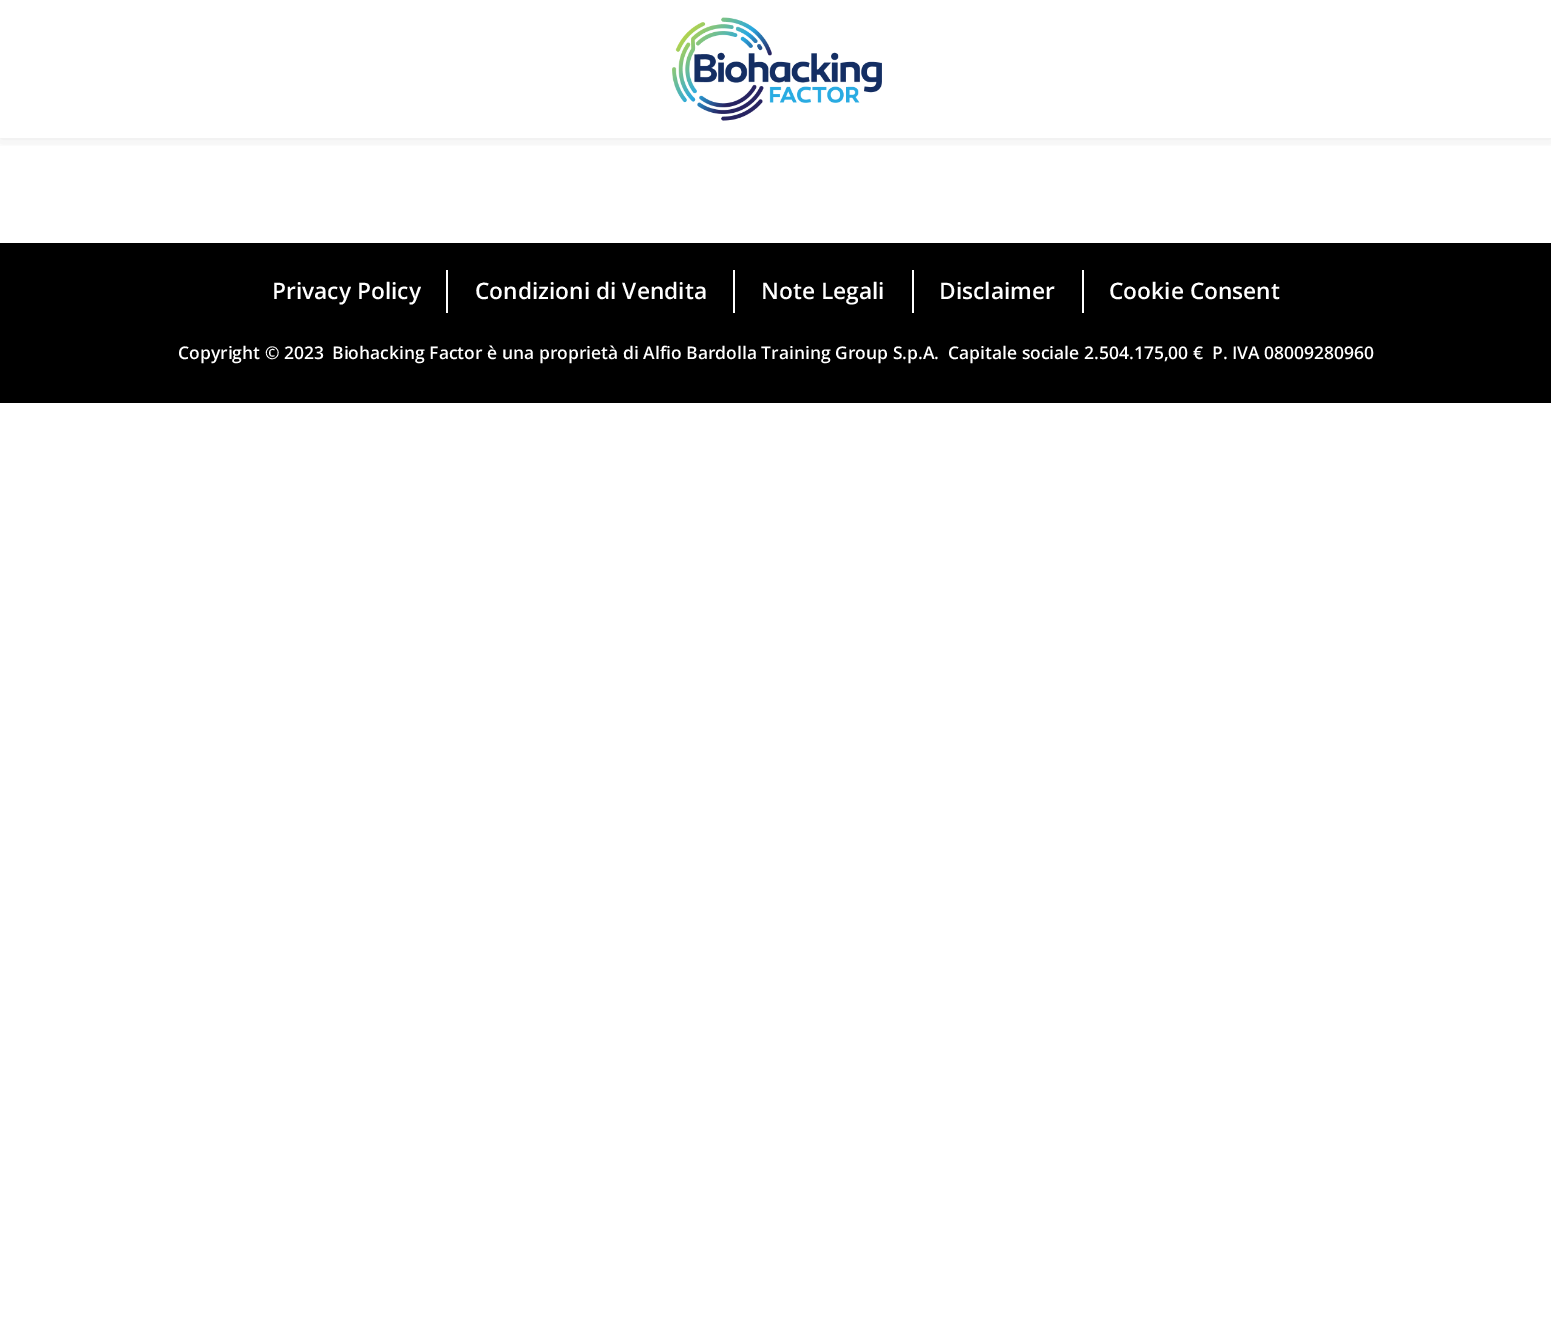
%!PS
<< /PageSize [1551 1327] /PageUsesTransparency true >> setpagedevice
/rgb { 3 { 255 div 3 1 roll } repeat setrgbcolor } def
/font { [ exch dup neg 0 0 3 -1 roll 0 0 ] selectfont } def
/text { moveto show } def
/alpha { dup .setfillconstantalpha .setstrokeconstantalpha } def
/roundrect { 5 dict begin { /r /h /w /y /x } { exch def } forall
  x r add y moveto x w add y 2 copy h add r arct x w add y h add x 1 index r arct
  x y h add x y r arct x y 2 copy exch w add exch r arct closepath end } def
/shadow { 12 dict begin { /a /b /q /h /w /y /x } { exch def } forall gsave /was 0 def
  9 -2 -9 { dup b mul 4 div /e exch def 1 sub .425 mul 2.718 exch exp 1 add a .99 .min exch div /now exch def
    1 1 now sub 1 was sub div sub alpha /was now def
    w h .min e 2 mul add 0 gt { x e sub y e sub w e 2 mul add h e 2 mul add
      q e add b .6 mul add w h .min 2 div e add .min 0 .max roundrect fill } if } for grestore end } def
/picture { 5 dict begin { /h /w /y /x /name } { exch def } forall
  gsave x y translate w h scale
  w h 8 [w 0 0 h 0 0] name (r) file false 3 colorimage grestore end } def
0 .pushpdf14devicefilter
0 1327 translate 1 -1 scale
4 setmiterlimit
255 255 255 rgb
0 0 1551 1327 rectfill
gsave
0 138 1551 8 rectclip
0 0 0 rgb
0 0 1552 138 0 9 0.1 shadow
grestore
(img_01.rgb) 672 17 210 104 picture
0 0 0 rgb
0 243 1551 160 rectfill
255 255 255 rgb
446 270 2 43 rectfill
733 270 2 43 rectfill
912 270 2 43 rectfill
1082 270 2 43 rectfill
/OpenSans-SemiBold 22.75 font
(Privacy Policy) 272 299 text
(Condizioni di Vendita) 475 299 text
(Note Legali) 761 299 text
(Disclaimer) 939 299 text
(Cookie Consent) 1109 299 text
/OpenSans-SemiBold 17.5 font
(Copyright © 2023) 178 359 text
(Biohacking Factor è una proprietà di Alfio Bardolla Training Group S.p.A.) 332 359 text
(Capitale sociale 2.504.175,00 €) 948 359 text
(P. IVA 08009280960) 1212 359 text
.poppdf14devicefilter showpage
